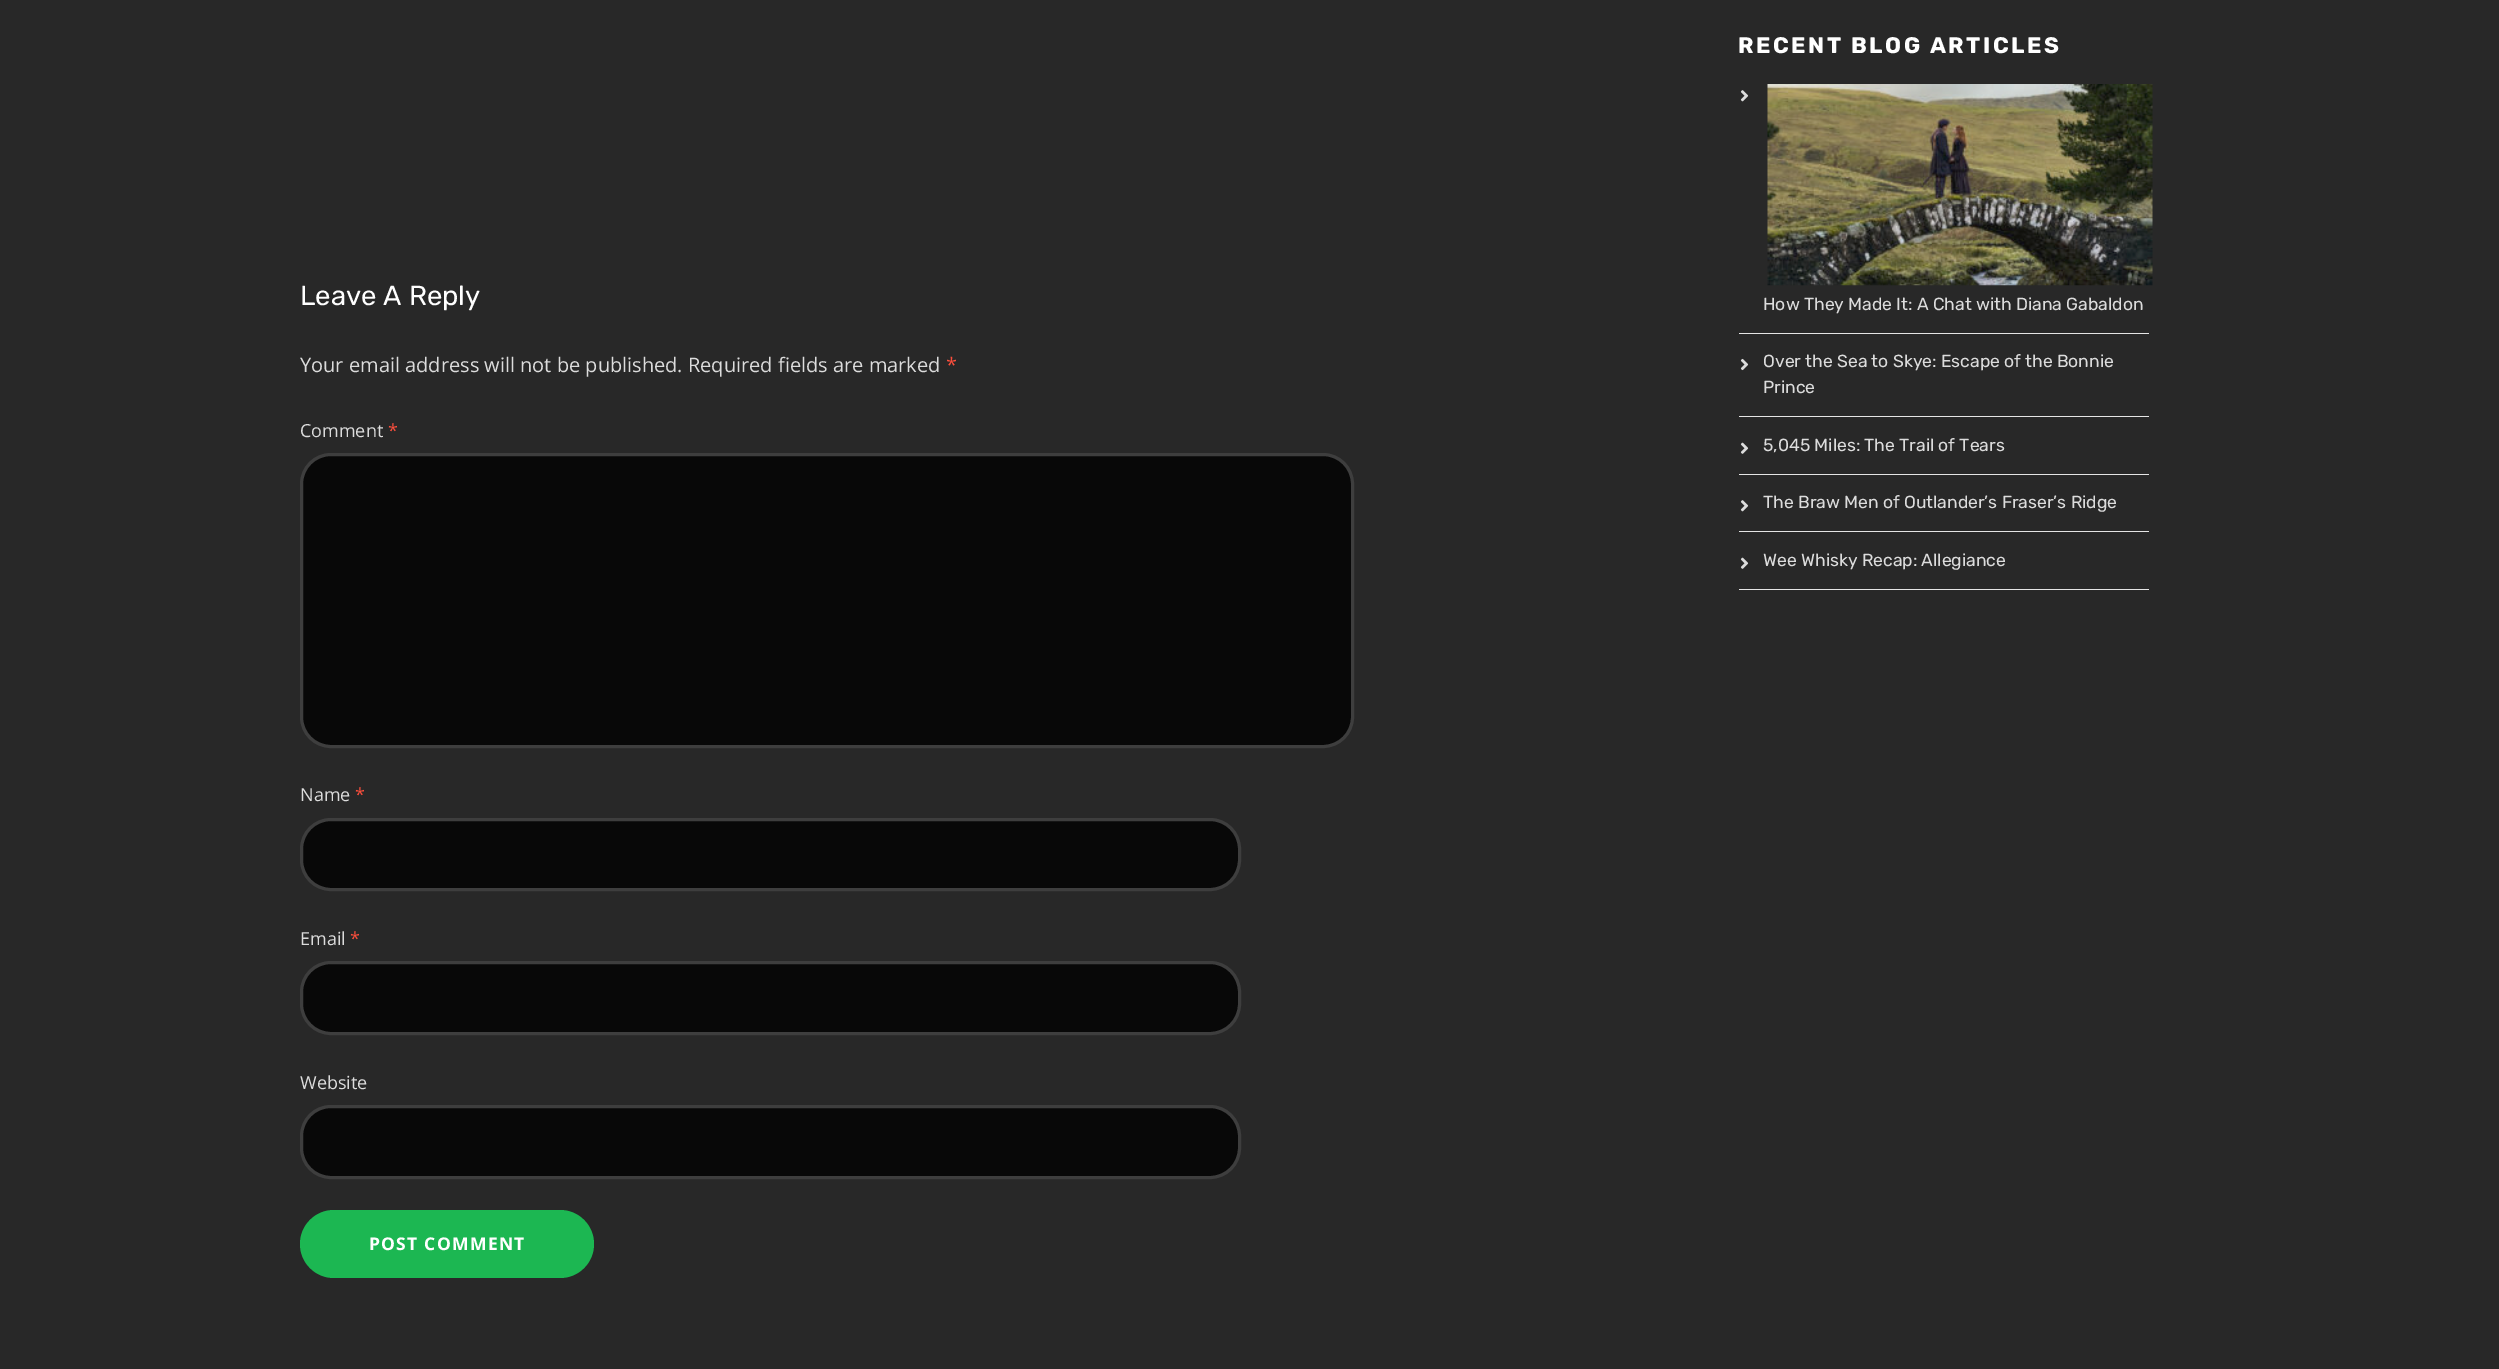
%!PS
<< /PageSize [2499 1369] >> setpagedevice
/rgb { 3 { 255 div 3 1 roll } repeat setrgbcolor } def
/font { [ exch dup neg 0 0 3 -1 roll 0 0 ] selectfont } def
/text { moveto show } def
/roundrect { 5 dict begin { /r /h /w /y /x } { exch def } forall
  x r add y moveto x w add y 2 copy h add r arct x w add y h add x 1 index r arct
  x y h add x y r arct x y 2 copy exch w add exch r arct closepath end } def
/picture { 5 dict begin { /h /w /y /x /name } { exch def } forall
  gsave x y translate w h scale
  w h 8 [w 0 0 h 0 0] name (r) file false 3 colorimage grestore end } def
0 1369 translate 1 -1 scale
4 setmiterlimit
40 40 40 rgb
0 0 2499 1369 rectfill
8 8 8 rgb
301.5 454.5 1051 292 29.5 roundrect gsave fill grestore
62 62 62 rgb
3 setlinewidth
stroke
8 8 8 rgb
301.5 819.5 938 70 29.5 roundrect gsave fill grestore
62 62 62 rgb
stroke
8 8 8 rgb
301.5 962.5 938 71 29.5 roundrect gsave fill grestore
62 62 62 rgb
stroke
8 8 8 rgb
301.5 1106.5 938 71 29.5 roundrect gsave fill grestore
62 62 62 rgb
stroke
28 183 82 rgb
300 1210 294 68 34 roundrect fill
229 229 229 rgb
1739 333 410 1 rectfill
(img_01.rgb) 1740 90 9 12 picture
(img_02.rgb) 1767 84 386 202 picture
1739 416 410 1 rectfill
(img_03.rgb) 1740 358 9 13 picture
1739 474 410 1 rectfill
(img_04.rgb) 1740 442 9 12 picture
1739 531 410 1 rectfill
(img_01.rgb) 1740 500 9 12 picture
1739 589 410 1 rectfill
(img_04.rgb) 1740 557 9 12 picture
/Rubik-Regular 27.5 font
255 255 255 rgb
(Leave A Reply) 300 305 text
/OpenSans-Regular 20 font
220 220 220 rgb
(Your email address will not be published. Required fields are marked) 300 372 text
250 78 60 rgb
(*) 946 372 text
/OpenSans-Regular 18 font
220 220 220 rgb
(Comment) 300 437 text
250 78 60 rgb
(*) 388 437 text
220 220 220 rgb
(Name) 300 801 text
250 78 60 rgb
(*) 355 801 text
220 220 220 rgb
(Email) 300 945 text
250 78 60 rgb
(*) 350 945 text
220 220 220 rgb
(Website) 300 1089 text
/OpenSans-Bold 17.5 font
255 255 255 rgb
369 1250 moveto 1.25 0 (POST COMMENT) ashow
/Rubik-Bold 22.5 font
1738 53 moveto 2.5 0 (RECENT BLOG ARTICLES) ashow
/Rubik-Regular 17.5 font
220 220 220 rgb
(How They Made It: A Chat with Diana Gabaldon) 1763 310 text
(Over the Sea to Skye: Escape of the Bonnie) 1763 367 text
(Prince) 1763 393 text
(5,045 Miles: The Trail of Tears) 1763 451 text
(The Braw Men of Outlander’s Fraser’s Ridge) 1763 508 text
(Wee Whisky Recap: Allegiance) 1763 566 text
showpage
